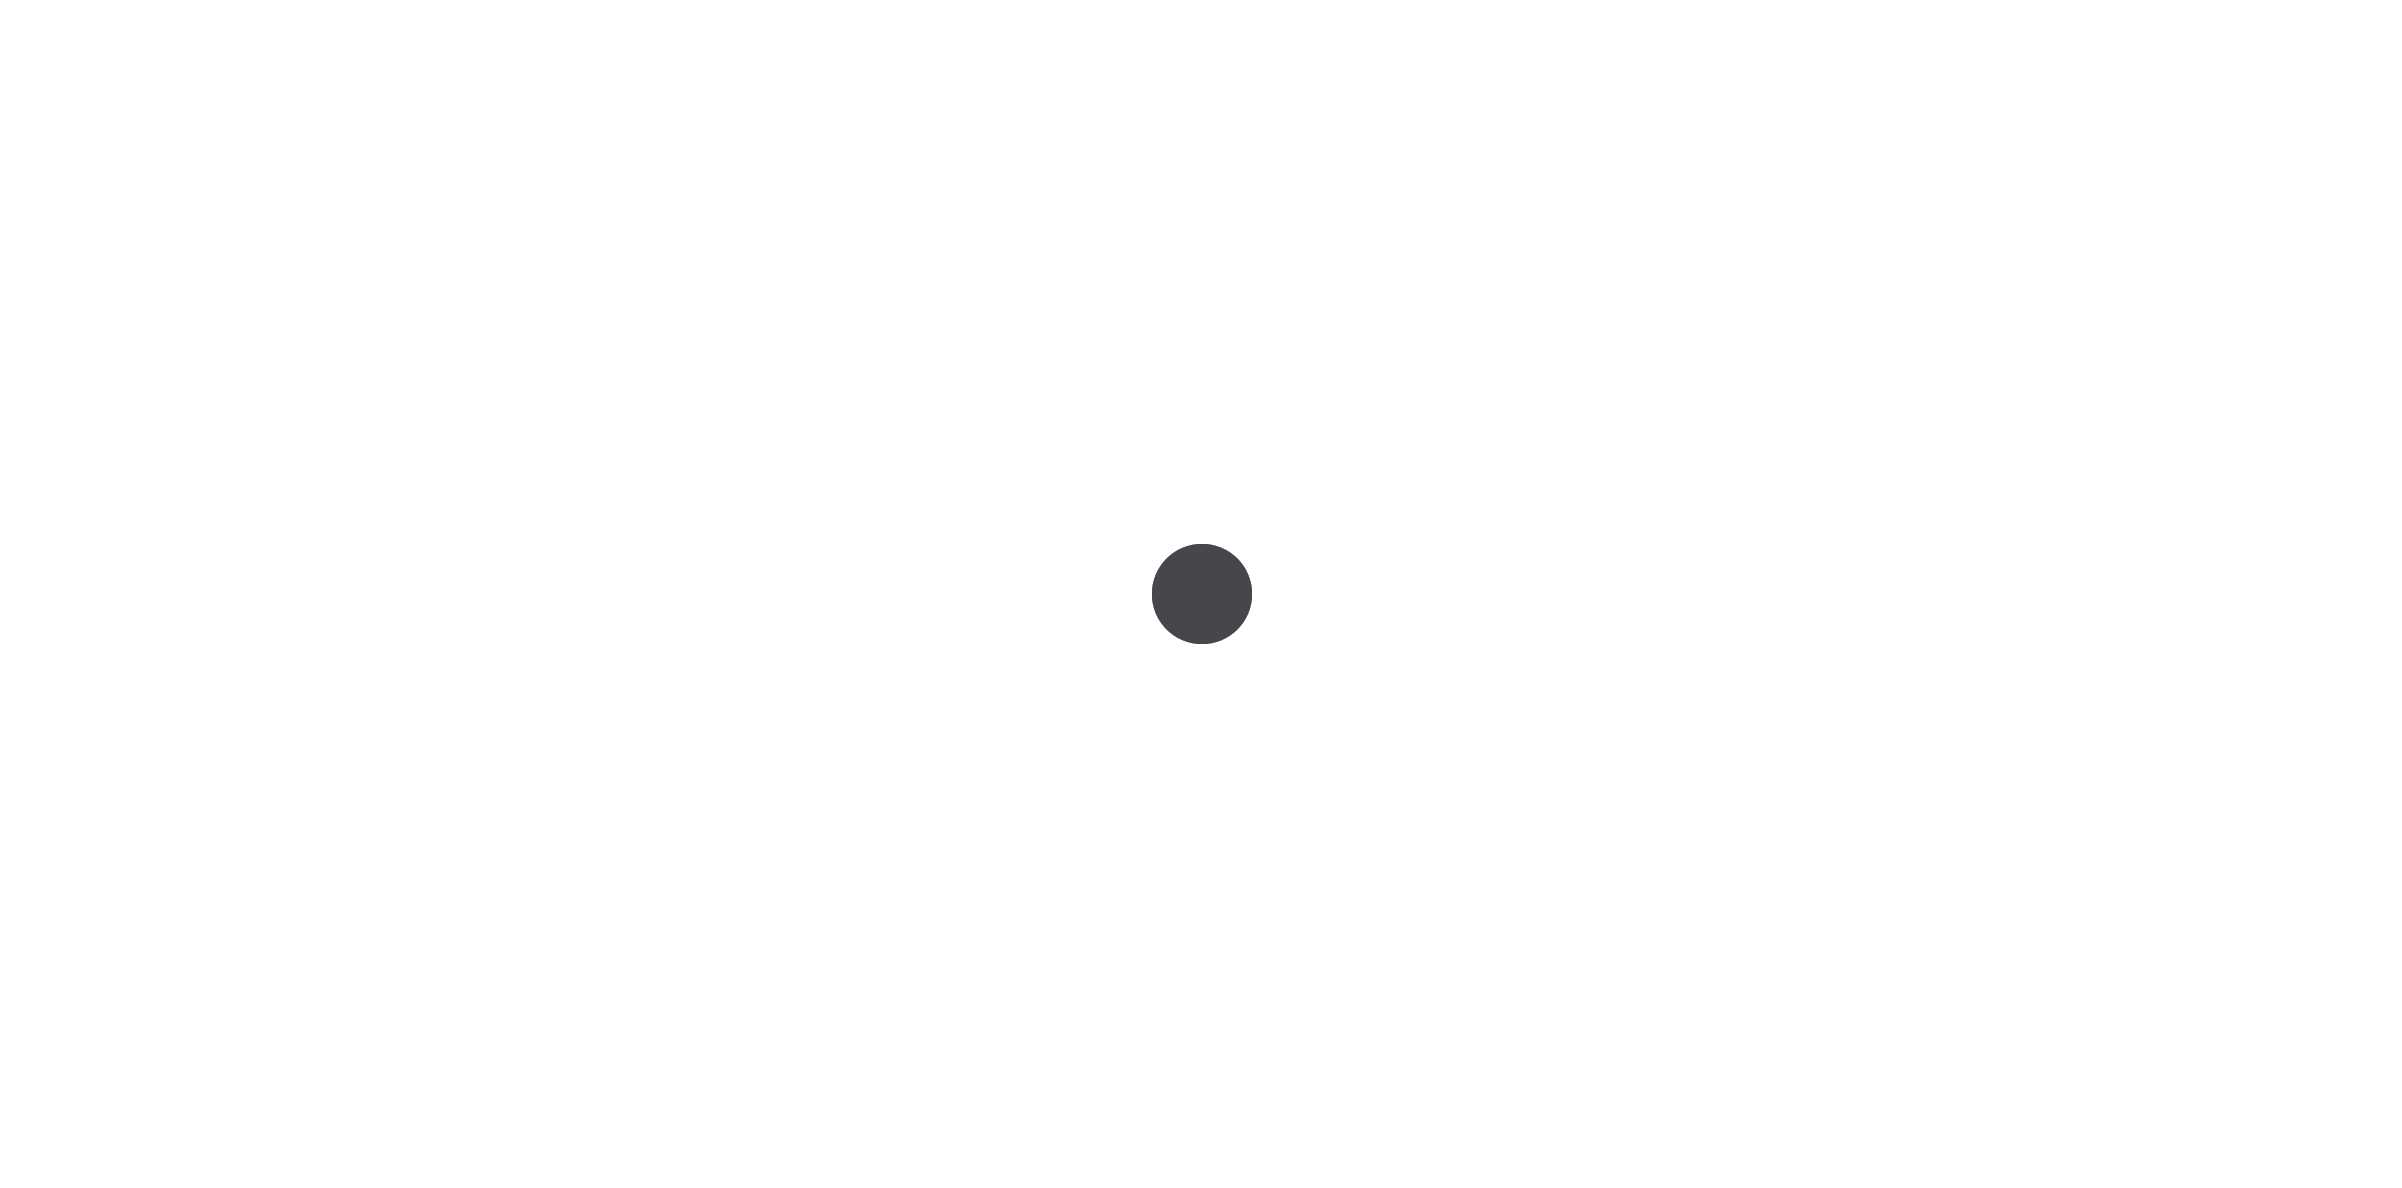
%!PS
<< /PageSize [2402 1188] /PageUsesTransparency true >> setpagedevice
/rgb { 3 { 255 div 3 1 roll } repeat setrgbcolor } def
/alpha { dup .setfillconstantalpha .setstrokeconstantalpha } def
/circle { newpath 0 360 arc closepath } def
0 .pushpdf14devicefilter
0 1188 translate 1 -1 scale
4 setmiterlimit
255 255 255 rgb
0 0 2402 1188 rectfill
101 101 106 rgb
1202 594 50 circle fill
0.8 alpha
63 62 69 rgb
1202 594 50 circle fill
.poppdf14devicefilter showpage
